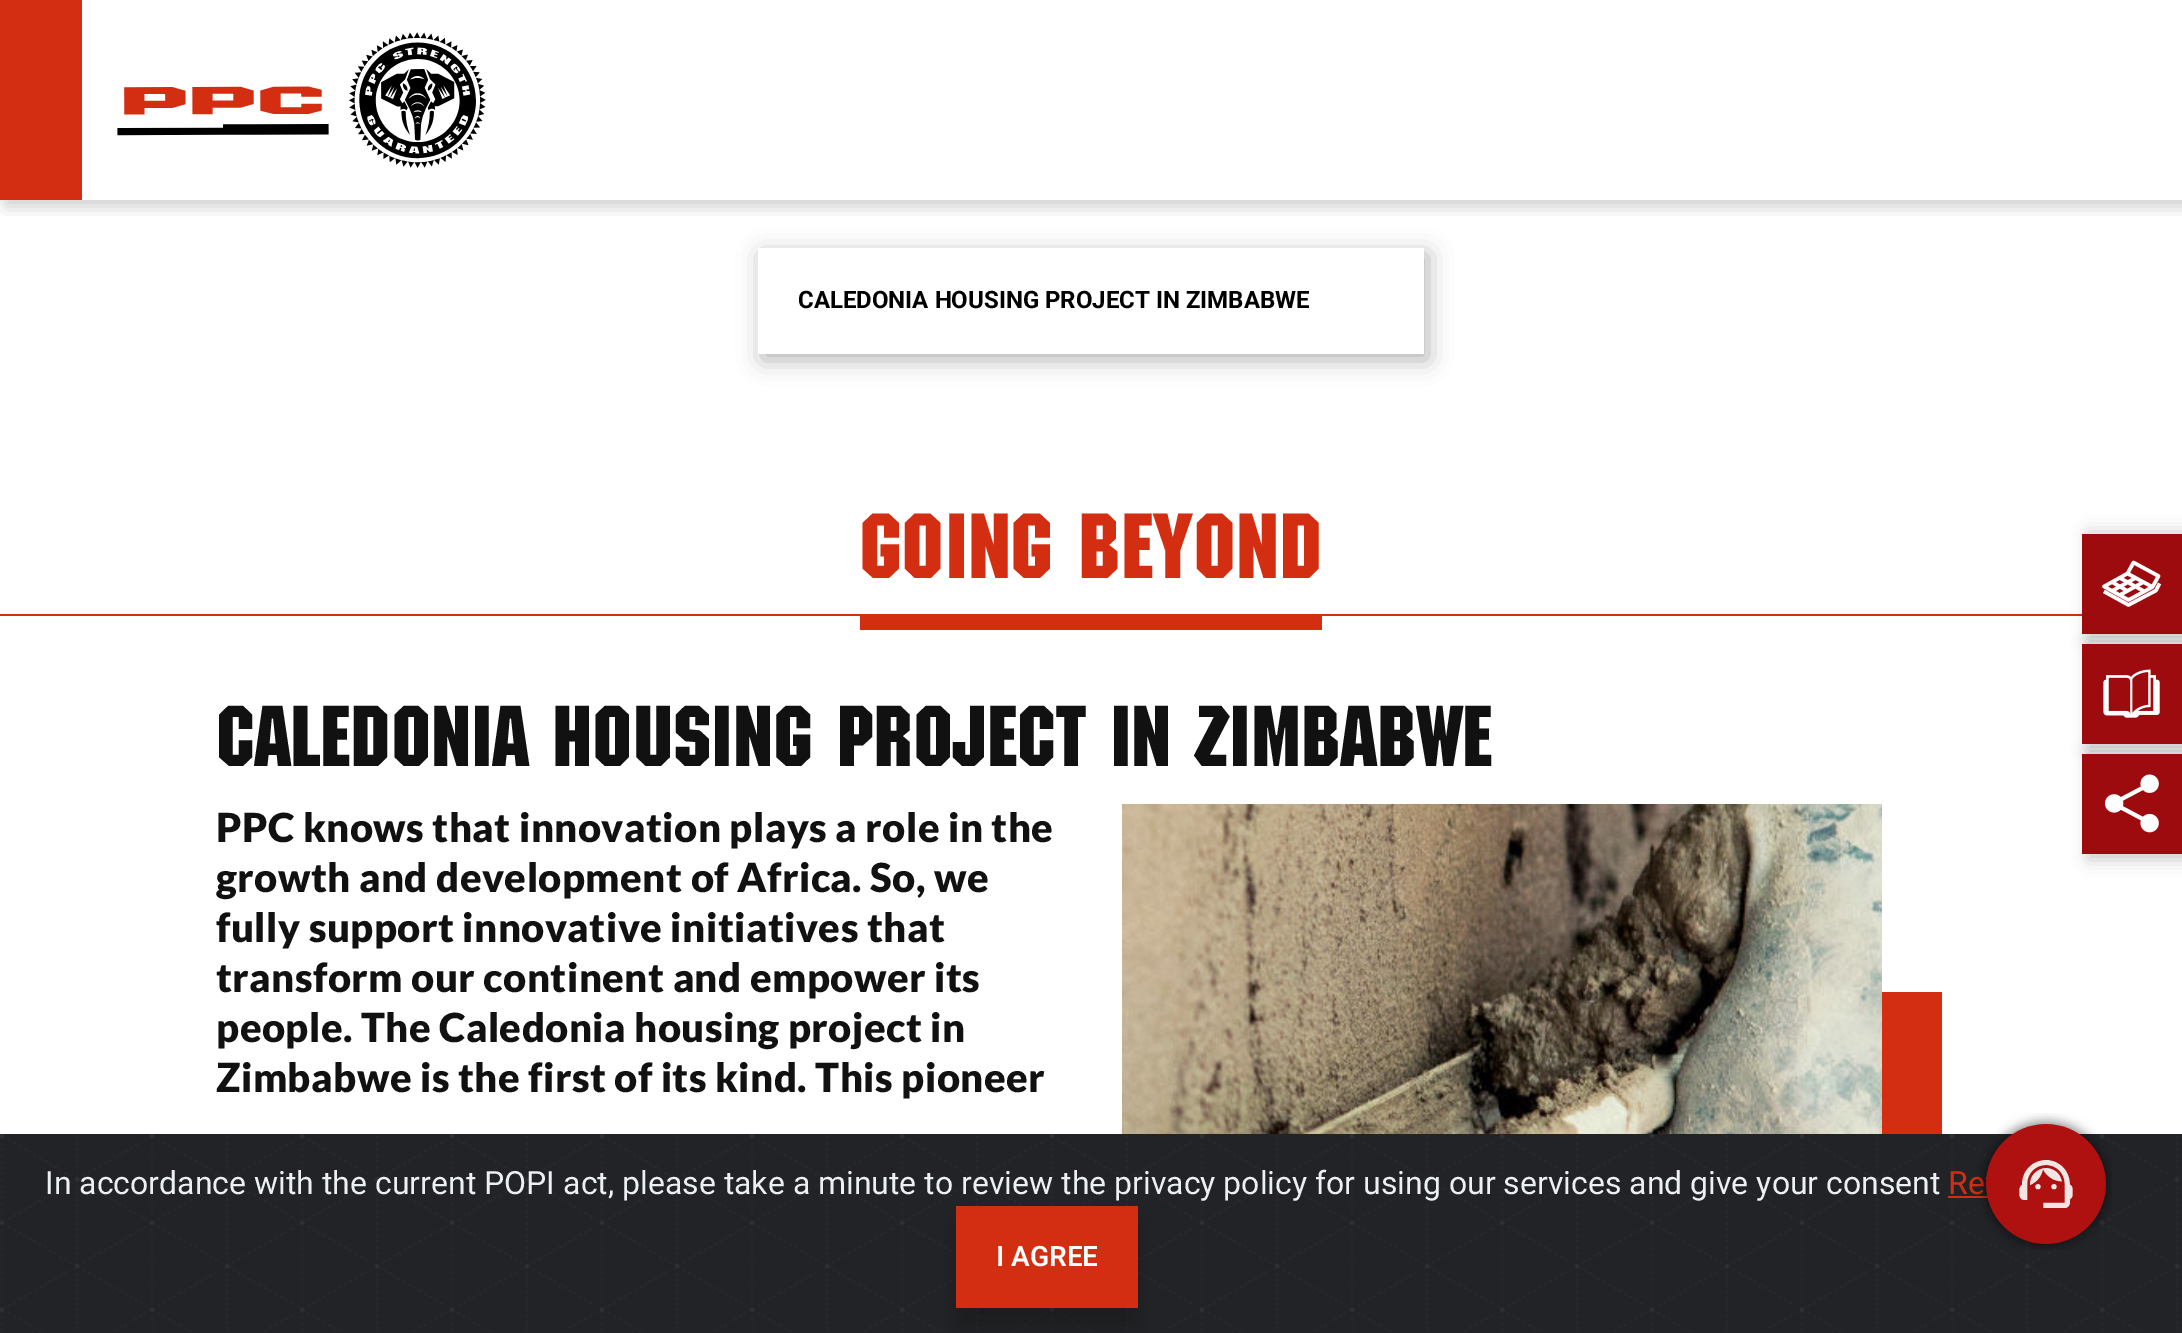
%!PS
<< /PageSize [2182 1333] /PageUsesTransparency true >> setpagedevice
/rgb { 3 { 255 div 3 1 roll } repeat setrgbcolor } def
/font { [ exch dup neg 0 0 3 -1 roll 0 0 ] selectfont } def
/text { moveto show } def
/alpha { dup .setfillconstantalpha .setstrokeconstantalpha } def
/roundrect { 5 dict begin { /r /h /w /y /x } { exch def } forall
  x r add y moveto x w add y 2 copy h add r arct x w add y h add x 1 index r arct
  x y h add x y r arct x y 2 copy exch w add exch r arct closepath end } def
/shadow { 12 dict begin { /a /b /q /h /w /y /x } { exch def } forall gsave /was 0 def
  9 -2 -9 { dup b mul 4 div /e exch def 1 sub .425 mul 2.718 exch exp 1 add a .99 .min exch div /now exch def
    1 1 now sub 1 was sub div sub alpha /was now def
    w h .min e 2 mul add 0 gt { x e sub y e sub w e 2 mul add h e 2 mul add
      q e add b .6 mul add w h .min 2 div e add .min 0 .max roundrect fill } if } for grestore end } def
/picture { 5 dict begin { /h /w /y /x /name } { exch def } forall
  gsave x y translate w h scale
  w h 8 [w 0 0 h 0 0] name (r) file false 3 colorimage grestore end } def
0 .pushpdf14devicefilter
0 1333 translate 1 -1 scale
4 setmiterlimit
255 255 255 rgb
0 0 2182 1333 rectfill
gsave
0 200 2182 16 rectclip
0 0 0 rgb
6 -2 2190 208 0 8 0.2 shadow
grestore
212 46 18 rgb
0 0 82 200 rectfill
(img_01.rgb) 117 32 369 136 picture
gsave
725 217 moveto 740 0 rlineto 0 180 rlineto -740 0 rlineto closepath 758 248 moveto 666 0 rlineto 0 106 rlineto -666 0 rlineto closepath eoclip newpath
0 0 0 rgb
762 254 666 106 0 12 0.3 shadow
grestore
0 614 2082 2 rectfill
860 616 462 14 rectfill
(img_02.rgb) 1122 804 760 330 picture
1882 992 60 142 rectfill
0 0 0 rgb
2088 532 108 108 0 8 0.2 shadow
158 11 15 rgb
2082 534 100 100 rectfill
255 255 255 rgb
3.5 setlinewidth
1 setlinejoin
2128.5 600 moveto 24 -13 rlineto -25 -13.5 rlineto -23.5 13 rlineto closepath 2120 578 moveto 24.5 13.5 rlineto 2112 582 moveto 15.5 9 rlineto 2112 591 moveto 23.5 -13 rlineto 2120 595 moveto 23.5 -13 rlineto 2127.5 573.5 moveto 6 -11 rlineto 25 13.5 rlineto -6 11 rlineto 2159.5 583.5 moveto -3.5 7 rlineto -27.5 14.5 rlineto -24.5 -13.5 rlineto stroke
0 0 0 rgb
2088 642 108 108 0 8 0.2 shadow
158 11 15 rgb
2082 644 100 100 rectfill
(img_03.rgb) 2103 669 57 49 picture
0 0 0 rgb
2088 752 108 108 0 8 0.2 shadow
158 11 15 rgb
2082 754 100 100 rectfill
(img_04.rgb) 2104 774 55 59 picture
33 35 39 rgb
0 1134 2182 199 rectfill
(img_05.rgb) 0 1134 2180 198 picture
212 46 18 rgb
1948 1196 40 2 rectfill
0 0 0 rgb
956 1226 182 102 0 10 0.2 shadow
212 46 18 rgb
956 1206 182 102 rectfill
/Roboto-Bold 24 font
0 0 0 rgb
(CALEDONIA HOUSING PROJECT IN ZIMBABWE) 798 308 text
/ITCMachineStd-Medium 90 font
212 46 18 rgb
(Going Beyond) 860 578 text
/ITCMachineStd-Medium 84 font
17 17 17 rgb
(Caledonia housing project in Zimbabwe) 216 766 text
/Lato-Black 40 font
216 842 moveto 0.4 0 (PPC knows that innovation plays a role in the) ashow
216 892 moveto 0.4 0 (growth and development of Africa. So, we) ashow
216 942 moveto 0.4 0 (fully support innovative initiatives that) ashow
216 992 moveto 0.4 0 (transform our continent and empower its) ashow
216 1042 moveto 0.4 0 (people. The Caledonia housing project in) ashow
216 1092 moveto 0.4 0 (Zimbabwe is the first of its kind. This pioneer) ashow
/Roboto-Regular 32 font
236 240 241 rgb
(In accordance with the current POPI act, please take a minute to review the privacy policy for using our services and give your consent) 45 1194 text
212 46 18 rgb
(Re) 1948 1194 text
/Roboto-SemiBold 28 font
255 255 255 rgb
(I AGREE) 996 1266 text
(img_06.rgb) 1975 1113 137 137 picture
.poppdf14devicefilter showpage
